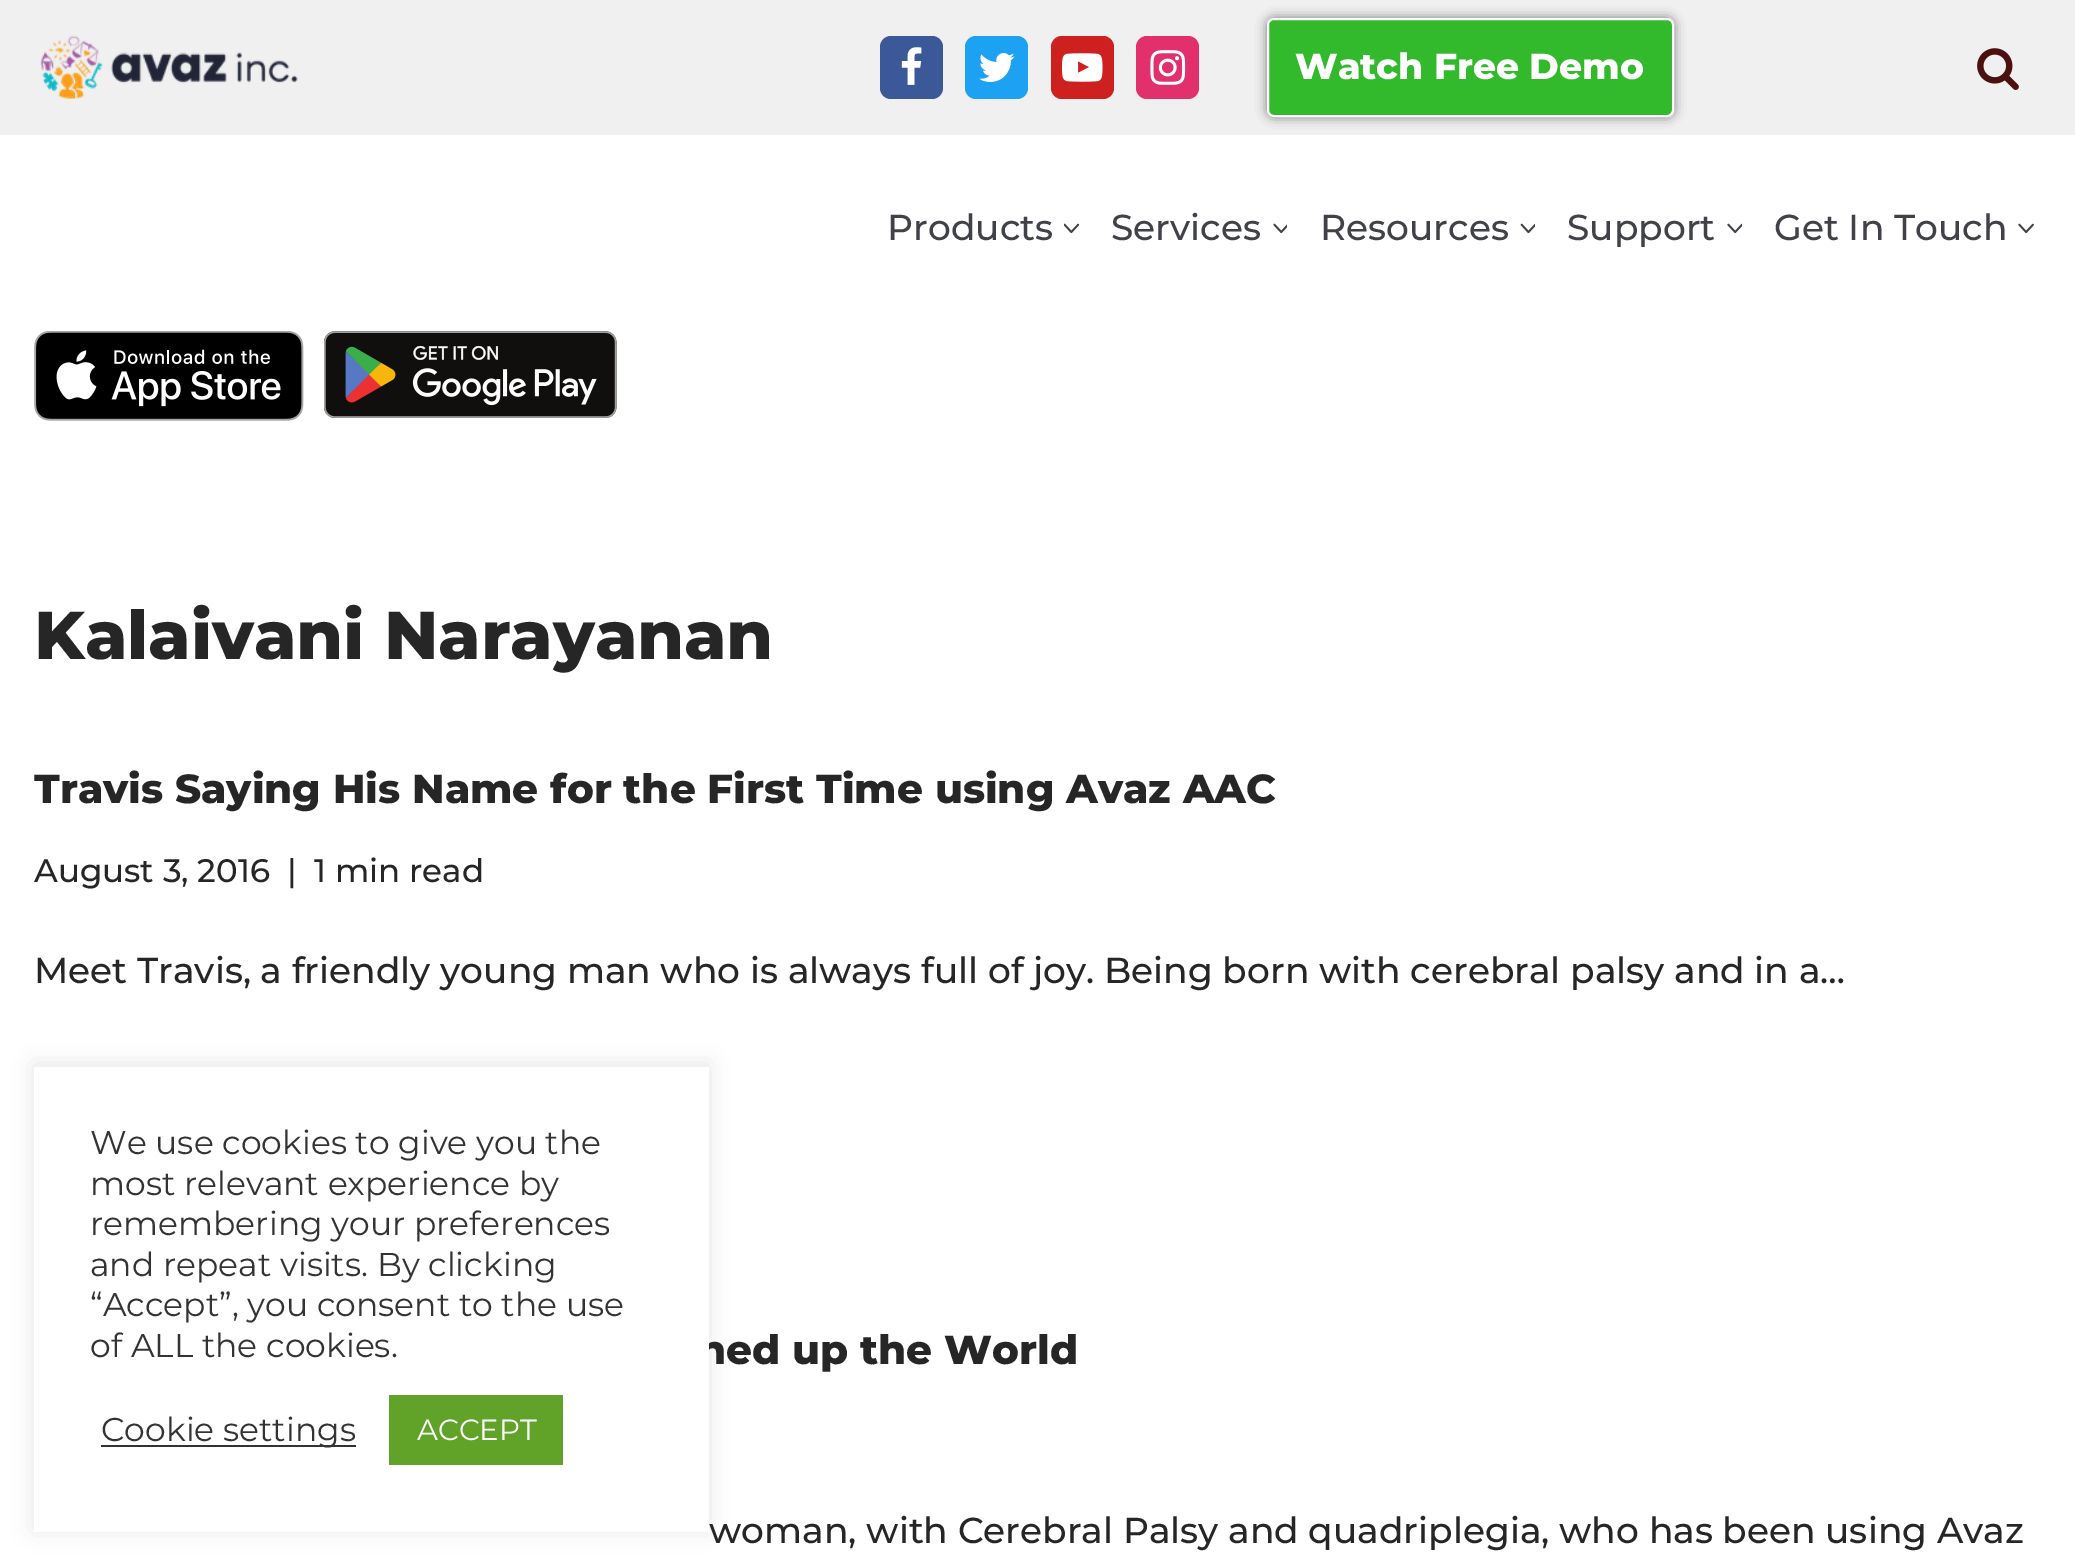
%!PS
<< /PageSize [2075 1564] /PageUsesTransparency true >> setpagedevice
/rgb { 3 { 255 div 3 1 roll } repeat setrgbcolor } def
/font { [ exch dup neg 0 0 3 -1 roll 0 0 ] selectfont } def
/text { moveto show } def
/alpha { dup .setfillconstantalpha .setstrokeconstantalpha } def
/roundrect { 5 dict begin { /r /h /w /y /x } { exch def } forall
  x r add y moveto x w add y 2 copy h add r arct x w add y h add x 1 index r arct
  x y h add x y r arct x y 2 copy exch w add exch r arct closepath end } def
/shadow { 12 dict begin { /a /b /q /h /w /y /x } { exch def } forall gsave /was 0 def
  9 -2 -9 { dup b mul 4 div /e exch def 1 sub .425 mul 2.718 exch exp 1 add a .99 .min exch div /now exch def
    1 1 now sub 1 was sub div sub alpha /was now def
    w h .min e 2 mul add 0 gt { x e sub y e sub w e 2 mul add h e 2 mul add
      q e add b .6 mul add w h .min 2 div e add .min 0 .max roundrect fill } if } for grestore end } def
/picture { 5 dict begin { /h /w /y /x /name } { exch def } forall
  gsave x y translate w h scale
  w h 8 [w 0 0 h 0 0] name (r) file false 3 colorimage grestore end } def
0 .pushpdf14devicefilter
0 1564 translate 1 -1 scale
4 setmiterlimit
255 255 255 rgb
0 0 2075 1564 rectfill
240 240 240 rgb
0 0 2075 135 rectfill
(img_01.rgb) 40 35 258 64 picture
59 89 152 rgb
880 36 63 63 11 roundrect fill
(img_02.rgb) 901 47 21 38 picture
29 161 242 rgb
965 36 63 63 11 roundrect fill
(img_03.rgb) 979 53 36 29 picture
205 32 31 rgb
1051 36 63 63 11 roundrect fill
(img_04.rgb) 1062 53 41 29 picture
225 48 108 rgb
1136 36 63 63 11 roundrect fill
(img_05.rgb) 1150 50 36 35 picture
0 0 0 rgb
1267 18 407 99 7 5.5 0.5 shadow
51 185 44 rgb
1268 19 405 97 6 roundrect gsave fill grestore
255 255 255 rgb
2 setlinewidth
stroke
(img_06.rgb) 1977 48 42 42 picture
(img_07.rgb) 1064 223 16 11 picture
(img_08.rgb) 1273 223 14 11 picture
(img_09.rgb) 1520 223 15 11 picture
(img_10.rgb) 1727 223 15 11 picture
(img_11.rgb) 2018 223 16 11 picture
(img_12.rgb) 34 331 270 90 picture
(img_13.rgb) 324 331 293 87 picture
172 171 171 rgb
34 1064 675 466 0 11 0.3 shadow
/Montserrat-ExtraBold 36 font
255 255 255 rgb
(Watch Free Demo) 1295 79 text
/Montserrat-Medium 36 font
64 66 72 rgb
(Products) 887 240 text
(Services) 1111 240 text
(Resources) 1320 240 text
(Support) 1567 240 text
(Get In Touch) 1774 240 text
/Montserrat-ExtraBold 67.5 font
39 38 38 rgb
(Kalaivani Narayanan) 34 659 text
gsave
34 758 2009 426 rectclip
/Montserrat-ExtraBold 40.5 font
(Travis Saying His Name for the First Time using Avaz AAC) 34 803 text
grestore
/Montserrat-Medium 32.5 font
(August 3, 2016) 34 882 text
(|) 287 882 text
(1 min read) 314 882 text
/Montserrat-Medium 36 font
(Meet Travis, a friendly young man who is always full of joy. Being born with cerebral palsy and in a…) 34 983 text
/Montserrat-ExtraBold 40.5 font
(ned up the World) 698 1364 text
/Montserrat-Medium 36 font
(woman, with Cerebral Palsy and quadriplegia, who has been using Avaz) 709 1543 text
255 255 255 rgb
34 1067 675 465 rectfill
/Montserrat-Regular 33 font
51 51 51 rgb
(We use cookies to give you the) 90 1154 text
(most relevant experience by) 90 1195 text
(remembering your preferences) 90 1235 text
(and repeat visits. By clicking) 90 1276 text
(“Accept”, you consent to the use) 90 1316 text
(of ALL the cookies.) 90 1357 text
101 1445 255 2 rectfill
(Cookie settings) 101 1441 text
97 162 41 rgb
389 1395 174 70 rectfill
/Montserrat-Regular 29.25 font
255 255 255 rgb
(ACCEPT) 417 1440 text
.poppdf14devicefilter showpage
